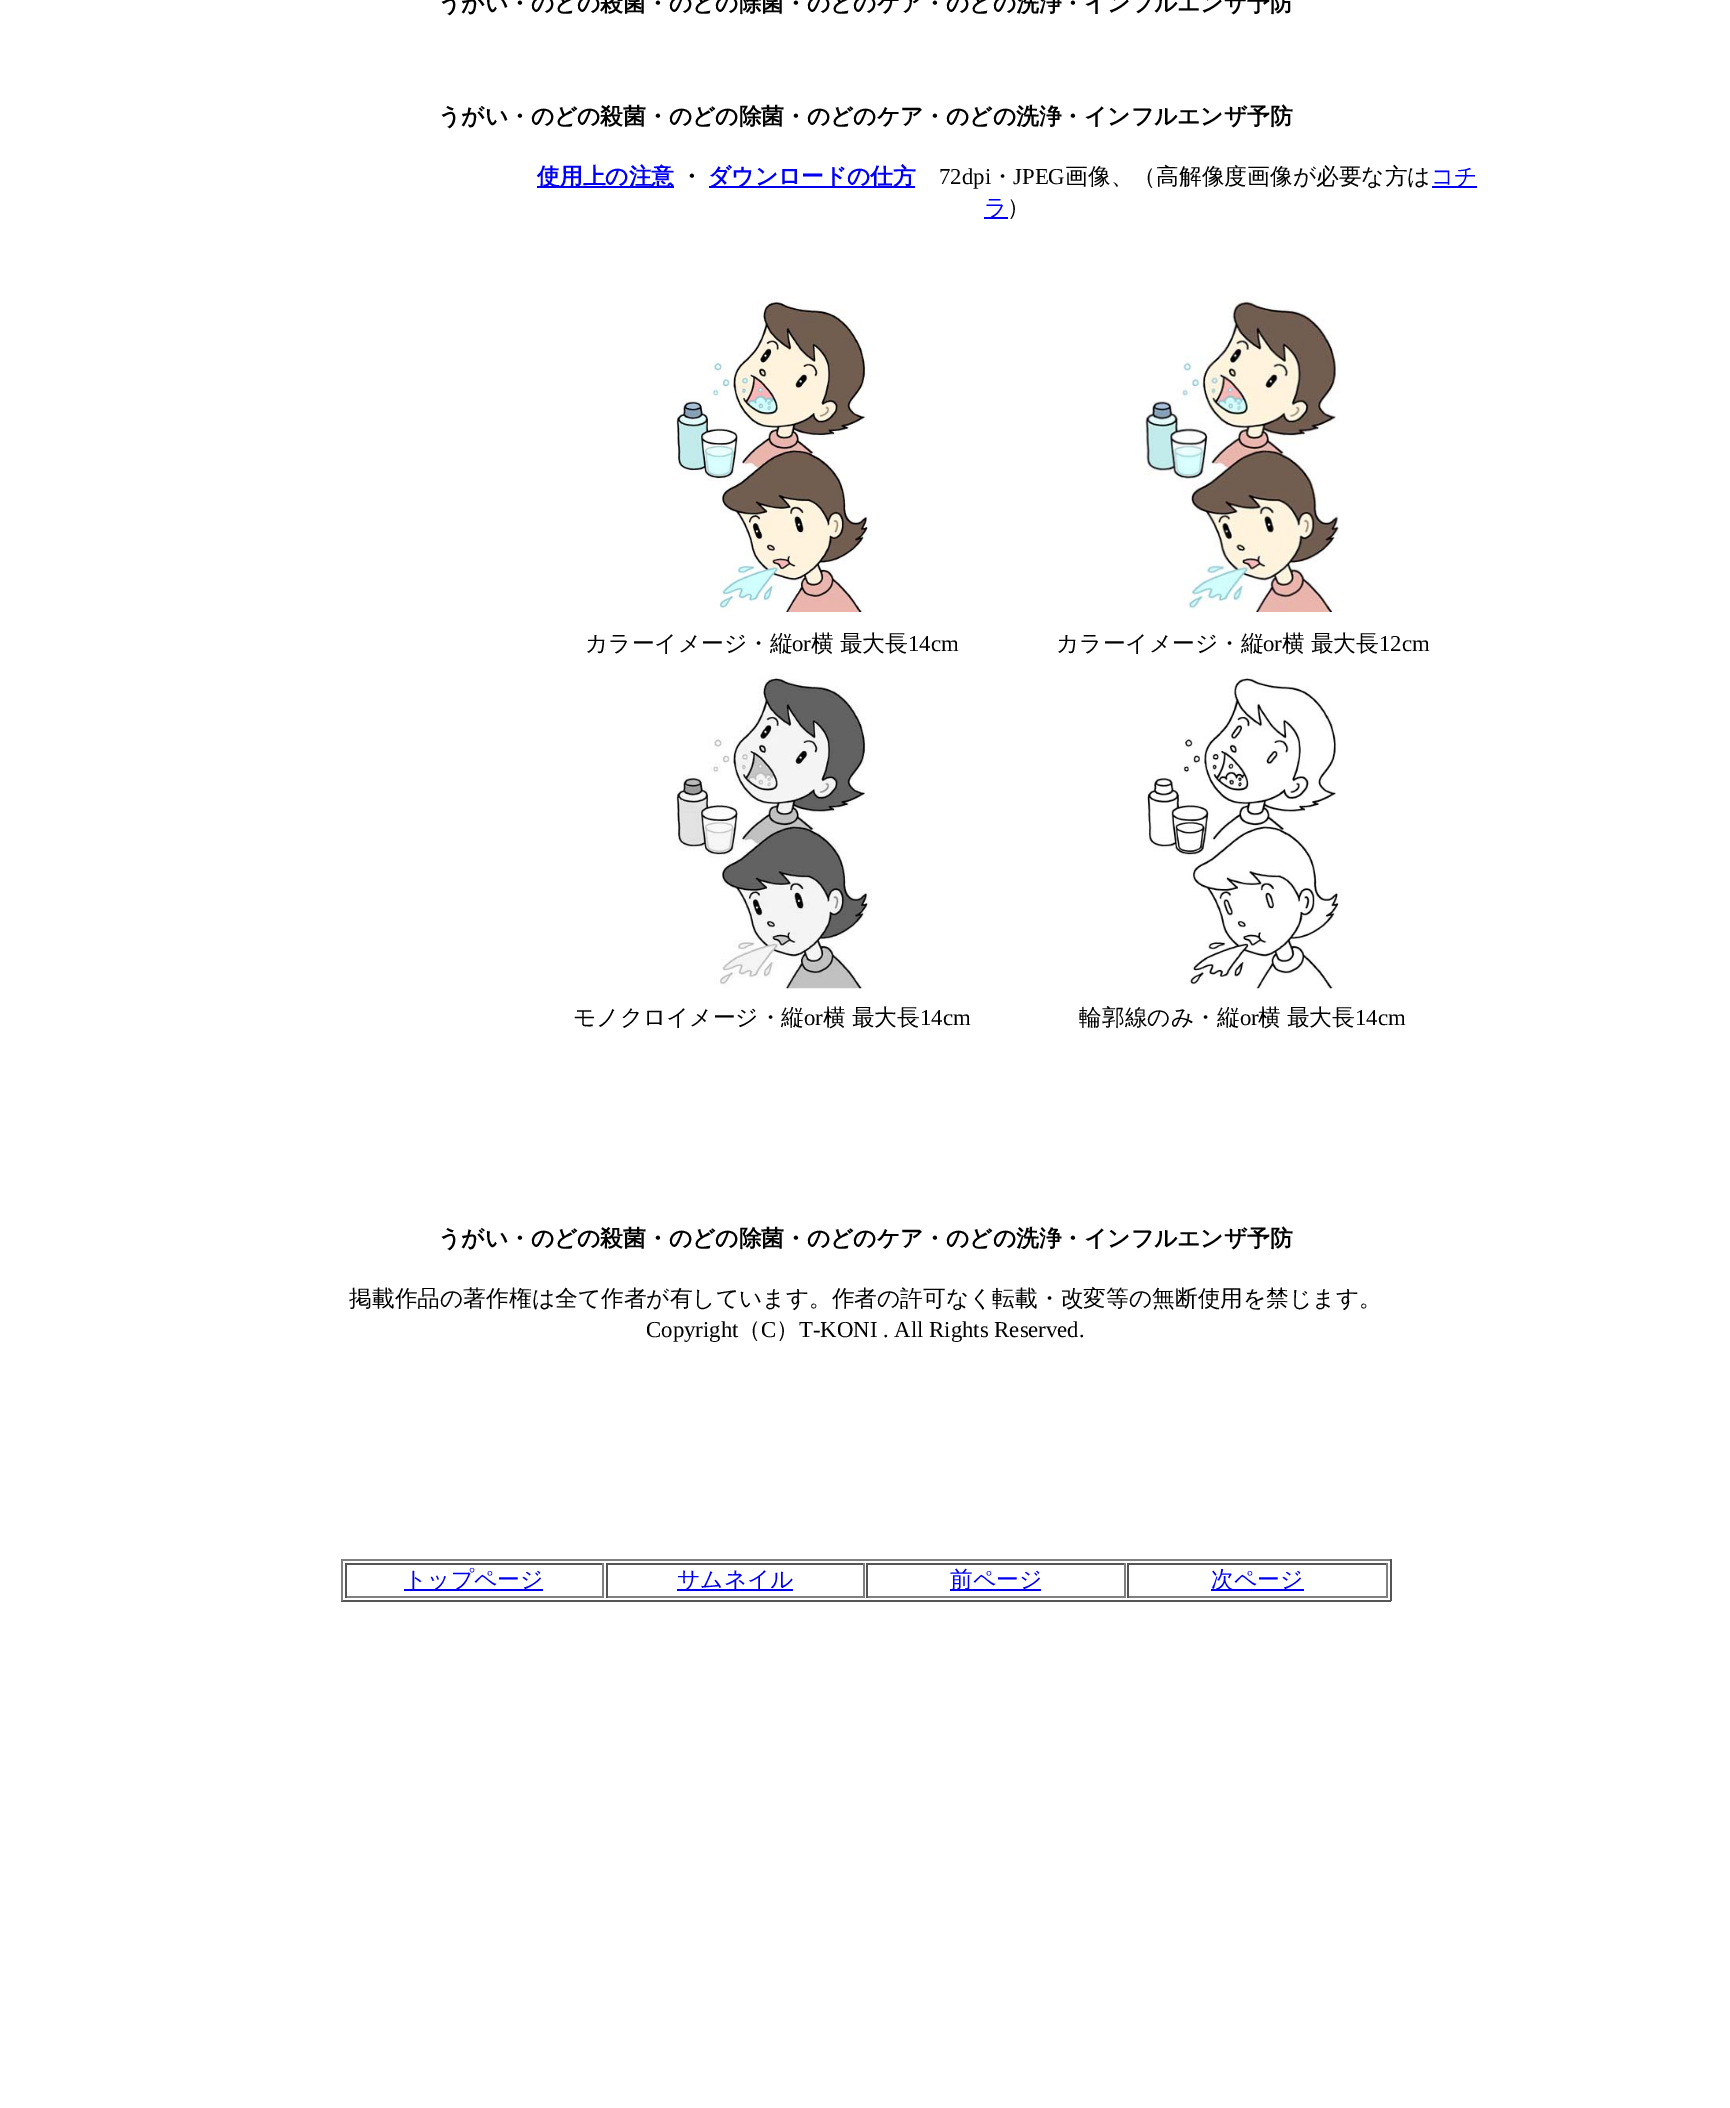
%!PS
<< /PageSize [1730 2108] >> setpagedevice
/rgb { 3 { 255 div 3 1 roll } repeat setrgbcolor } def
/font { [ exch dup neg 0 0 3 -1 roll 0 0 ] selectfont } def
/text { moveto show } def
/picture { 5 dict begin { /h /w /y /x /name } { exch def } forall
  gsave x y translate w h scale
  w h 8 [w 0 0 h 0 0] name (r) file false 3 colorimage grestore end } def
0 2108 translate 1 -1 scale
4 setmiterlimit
255 255 255 rgb
0 0 1730 2108 rectfill
0 0 238 rgb
537 186 137 2 rectfill
709 186 206 2 rectfill
1432 186 45 2 rectfill
984 217 24 2 rectfill
(img_01.rgb) 676 297 196 315 picture
(img_02.rgb) 1140 297 199 315 picture
(img_03.rgb) 676 673 196 316 picture
(img_04.rgb) 1147 674 196 315 picture
128 128 128 rgb
341 1559 1050 2 rectfill
85 85 85 rgb
1390 1559 2 42 rectfill
341 1600 1050 2 rectfill
128 128 128 rgb
341 1559 2 42 rectfill
85 85 85 rgb
345 1563 259 2 rectfill
128 128 128 rgb
602 1563 2 35 rectfill
345 1596 259 2 rectfill
85 85 85 rgb
345 1563 2 35 rectfill
0 0 238 rgb
404 1589 139 2 rectfill
85 85 85 rgb
606 1563 259 2 rectfill
128 128 128 rgb
863 1563 2 35 rectfill
606 1596 259 2 rectfill
85 85 85 rgb
606 1563 2 35 rectfill
0 0 238 rgb
677 1589 116 2 rectfill
85 85 85 rgb
866 1563 259 2 rectfill
128 128 128 rgb
1124 1563 2 35 rectfill
866 1596 259 2 rectfill
85 85 85 rgb
866 1563 2 35 rectfill
0 0 238 rgb
950 1589 91 2 rectfill
85 85 85 rgb
1127 1563 261 2 rectfill
128 128 128 rgb
1386 1563 2 35 rectfill
1127 1596 261 2 rectfill
85 85 85 rgb
1127 1563 2 35 rectfill
0 0 238 rgb
1211 1589 93 2 rectfill
/WenQuanYiZenHei-Bold 22.75 font
0 0 0 rgb
(うがい・のどの殺菌・のどの除菌・のどのケア・のどの洗浄・インフルエンザ予防) 438 11 text
(うがい・のどの殺菌・のどの除菌・のどのケア・のどの洗浄・インフルエンザ予防) 438 124 text
0 0 238 rgb
(使用上の注意) 537 184 text
0 0 0 rgb
(・) 680 184 text
0 0 238 rgb
(ダウンロードの仕方) 708 184 text
/LiberationSerif-Regular 22.75 font
0 0 0 rgb
(72dpi) 939 184 text
/WenQuanYiZenHei-Medium 22.75 font
(・) 991 184 text
/LiberationSerif-Regular 22.75 font
(JPEG) 1013 184 text
/WenQuanYiZenHei-Medium 22.75 font
(画像、（高解像度画像が必要な方は) 1065 184 text
0 0 238 rgb
(コチ) 1431 184 text
(ラ) 984 215 text
0 0 0 rgb
(）) 1007 215 text
(カラーイメージ・縦) 585 651 text
/LiberationSerif-Regular 22.75 font
(or) 792 651 text
/WenQuanYiZenHei-Medium 22.75 font
811 651 moveto -1 0 32 (横 最大長) widthshow
/LiberationSerif-Regular 22.75 font
(14cm) 908 651 text
/WenQuanYiZenHei-Medium 22.75 font
(カラーイメージ・縦) 1056 651 text
/LiberationSerif-Regular 22.75 font
(or) 1263 651 text
/WenQuanYiZenHei-Medium 22.75 font
1282 651 moveto -1 0 32 (横 最大長) widthshow
/LiberationSerif-Regular 22.75 font
(12cm) 1379 651 text
/WenQuanYiZenHei-Medium 22.75 font
(モノクロイメージ・縦) 573 1025 text
/LiberationSerif-Regular 22.75 font
(or) 804 1025 text
/WenQuanYiZenHei-Medium 22.75 font
823 1025 moveto -1 0 32 (横 最大長) widthshow
/LiberationSerif-Regular 22.75 font
(14cm) 920 1025 text
/WenQuanYiZenHei-Medium 22.75 font
(輪郭線のみ・縦) 1079 1025 text
/LiberationSerif-Regular 22.75 font
(or) 1240 1025 text
/WenQuanYiZenHei-Medium 22.75 font
1258 1025 moveto -1 0 32 (横 最大長) widthshow
/LiberationSerif-Regular 22.75 font
(14cm) 1355 1025 text
/WenQuanYiZenHei-Bold 22.75 font
(うがい・のどの殺菌・のどの除菌・のどのケア・のどの洗浄・インフルエンザ予防) 438 1246 text
/WenQuanYiZenHei-Medium 22.75 font
(掲載作品の著作権は全て作者が有しています。作者の許可なく転載・改変等の無断使用を禁じます。) 349 1306 text
/LiberationSerif-Regular 22.75 font
(Copyright) 646 1337 text
/WenQuanYiZenHei-Medium 22.75 font
(（) 738 1337 text
/LiberationSerif-Regular 22.75 font
(C) 761 1337 text
/WenQuanYiZenHei-Medium 22.75 font
(）) 776 1337 text
/LiberationSerif-Regular 22.75 font
(T-KONI . All Rights Reserved.) 799 1337 text
/WenQuanYiZenHei-Medium 22.75 font
0 0 238 rgb
(トップページ) 404 1587 text
(サムネイル) 677 1587 text
(前ページ) 950 1587 text
(次ページ) 1211 1587 text
showpage
